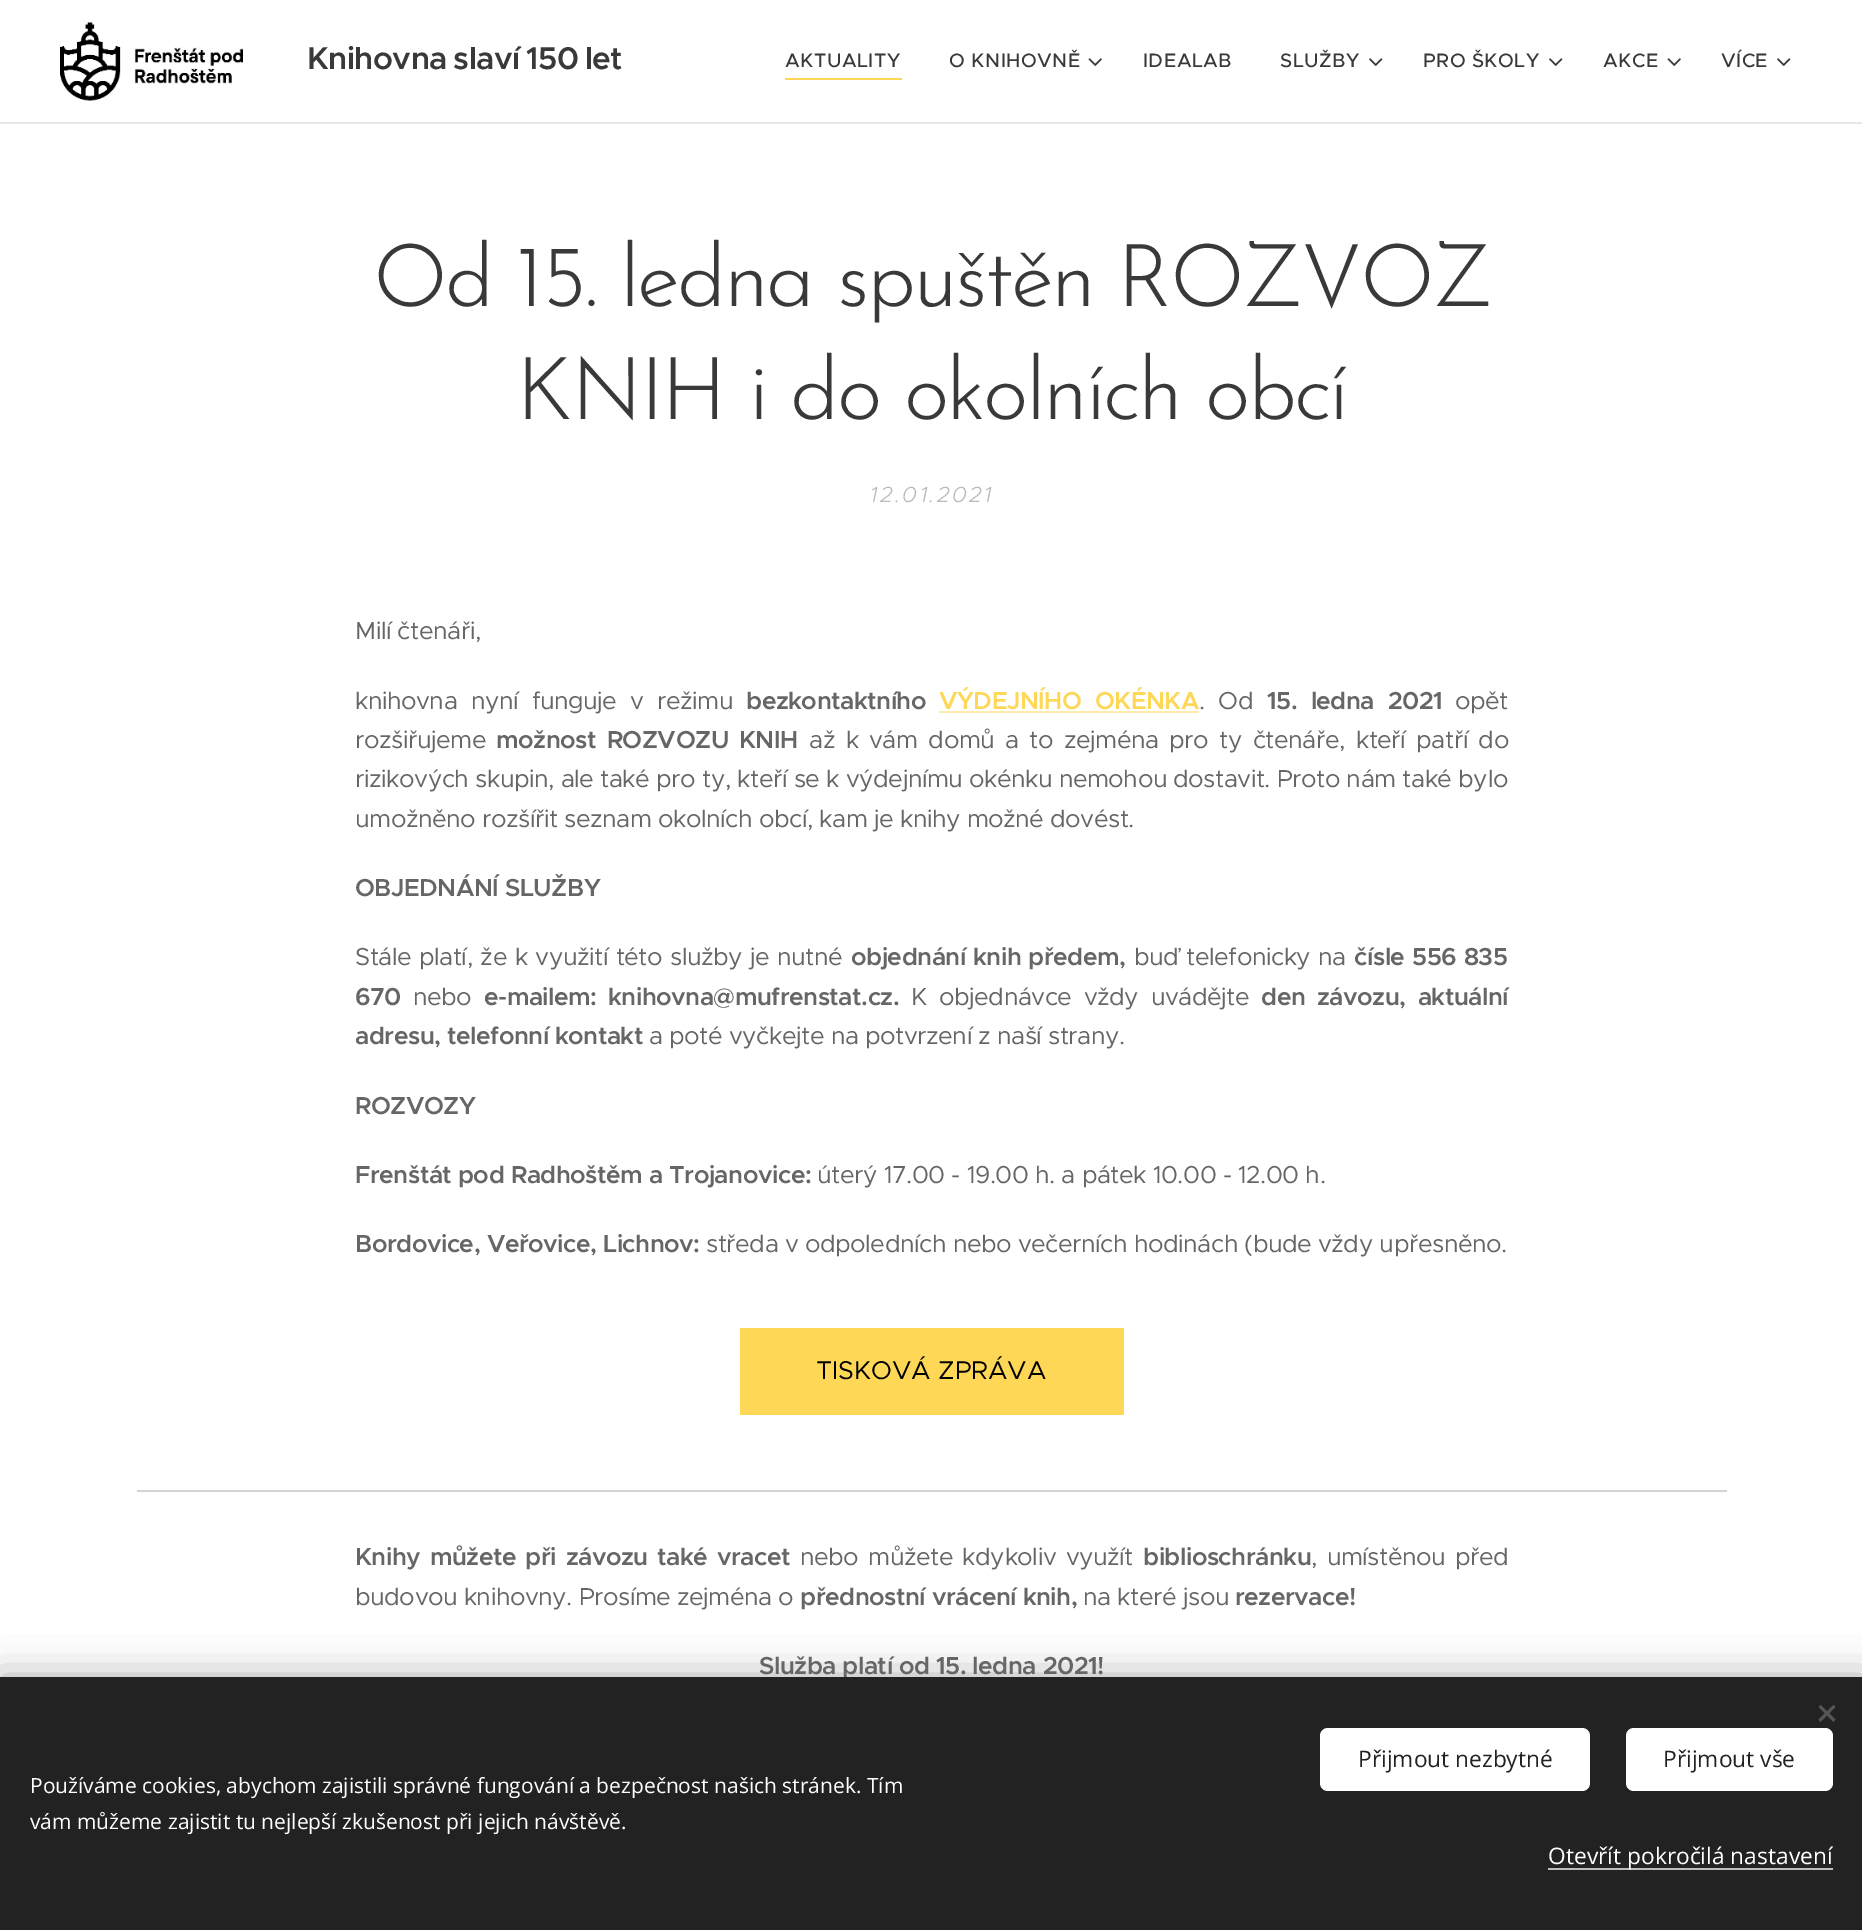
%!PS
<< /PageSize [1862 1930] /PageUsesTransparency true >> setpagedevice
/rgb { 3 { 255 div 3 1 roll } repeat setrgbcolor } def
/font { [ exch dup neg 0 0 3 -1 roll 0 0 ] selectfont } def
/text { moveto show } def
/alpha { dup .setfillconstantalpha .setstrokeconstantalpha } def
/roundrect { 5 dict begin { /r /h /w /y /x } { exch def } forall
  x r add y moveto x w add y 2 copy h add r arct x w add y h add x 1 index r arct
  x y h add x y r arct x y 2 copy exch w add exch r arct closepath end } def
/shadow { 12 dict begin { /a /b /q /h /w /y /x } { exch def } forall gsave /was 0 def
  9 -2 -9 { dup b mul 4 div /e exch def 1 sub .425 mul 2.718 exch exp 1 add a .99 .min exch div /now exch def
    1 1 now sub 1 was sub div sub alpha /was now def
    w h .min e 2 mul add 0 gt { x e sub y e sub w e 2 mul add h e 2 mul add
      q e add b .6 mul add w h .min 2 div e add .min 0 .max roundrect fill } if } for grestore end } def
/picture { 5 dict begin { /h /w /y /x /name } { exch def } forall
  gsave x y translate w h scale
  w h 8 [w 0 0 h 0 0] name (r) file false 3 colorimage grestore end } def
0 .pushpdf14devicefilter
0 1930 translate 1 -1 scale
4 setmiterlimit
255 255 255 rgb
0 0 1862 1930 rectfill
(img_01.rgb) 60 22 183 79 picture
255 215 87 rgb
785 78 117 2 rectfill
(img_02.rgb) 1088 58 14 8 picture
(img_03.rgb) 1369 58 14 8 picture
(img_03.rgb) 1549 58 14 8 picture
(img_02.rgb) 1667 58 14 8 picture
(img_03.rgb) 1777 58 14 8 picture
232 232 232 rgb
0 122 1862 2 rectfill
255 235 171 rgb
939 711 260 2 rectfill
255 215 87 rgb
740 1328 384 87 rectfill
212 212 212 rgb
137 1490 1590 2 rectfill
0 0 0 rgb
0 1677 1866 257 0 19 0.33 shadow
/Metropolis-SemiBold 31.5 font
57 57 57 rgb
307 69 moveto -2 0 32 -0.49 0 (Knihovna slaví 150 let) awidthshow
/Metropolis-Medium 19.5 font
785 67 moveto 0.5 0 (AKTUALITY) ashow
949 67 moveto 0.5 0 (O KNIHOVNĚ) ashow
1143 67 moveto 0.5 0 (IDEALAB) ashow
1280 67 moveto 0.5 0 (SLUŽBY) ashow
1423 67 moveto 0.5 0 (PRO ŠKOLY) ashow
1603 67 moveto 0.5 0 (AKCE) ashow
1721 67 moveto 0.5 0 (VÍCE) ashow
/JosefinSans-Light 87 font
373 306 moveto -2.6 0 (Od 15. ledna spuštěn ROZVOZ) ashow
516 419 moveto -2.6 0 (KNIH i do okolních obcí) ashow
/Metropolis-LightItalic 22 font
186 186 186 rgb
870 502 moveto 2.25 0 (12.01.2021) ashow
/Metropolis-Regular 24.6 font
102 102 102 rgb
355 639 moveto -0.49 0 (Milí čtenáři,) ashow
355 709 moveto 7 0 32 -0.49 0 (knihovna nyní funguje v režimu) awidthshow
/Metropolis-SemiBold 24.6 font
746 709 moveto -0.49 0 (bezkontaktního) ashow
255 215 87 rgb
939 709 moveto 7 0 32 -0.49 0 (VÝDEJNÍHO OKÉNKA) awidthshow
/Metropolis-Regular 24.6 font
102 102 102 rgb
1199 709 moveto 7 0 32 -0.49 0 (. Od) awidthshow
/Metropolis-SemiBold 24.6 font
1267 709 moveto 7 0 32 -0.49 0 (15. ledna 2021) awidthshow
/Metropolis-Regular 24.6 font
1455 709 moveto -0.49 0 (opět) ashow
355 748 moveto -0.49 0 (rozšiřujeme) ashow
/Metropolis-SemiBold 24.6 font
496 748 moveto 4.1 0 32 -0.49 0 (možnost ROZVOZU KNIH) awidthshow
/Metropolis-Regular 24.6 font
809 748 moveto 4.1 0 32 -0.49 0 (až k vám domů a to zejména pro ty čtenáře, kteří patří do) awidthshow
355 787 moveto -0.49 0 (rizikových skupin, ale také pro ty, kteří se k výdejnímu okénku nemohou dostavit. Proto nám také bylo) ashow
355 827 moveto -0.49 0 (umožněno rozšířit seznam okolních obcí, kam je knihy možné dovést.) ashow
/Metropolis-SemiBold 24.6 font
355 896 moveto -0.49 0 (OBJEDNÁNÍ SLUŽBY) ashow
/Metropolis-Regular 24.6 font
355 965 moveto 1.25 0 32 -0.49 0 (Stále platí, že k využití této služby je nutné) awidthshow
/Metropolis-SemiBold 24.6 font
851 965 moveto 1 0 32 -0.49 0 (objednání knih předem,) awidthshow
/Metropolis-Regular 24.6 font
1134 965 moveto 1.25 0 32 -0.49 0 (buď telefonicky na) awidthshow
/Metropolis-SemiBold 24.6 font
1354 965 moveto 1 0 32 -0.49 0 (čísle 556 835) awidthshow
355 1005 moveto -0.49 0 (670) ashow
/Metropolis-Regular 24.6 font
413 1005 moveto -0.49 0 (nebo) ashow
/Metropolis-SemiBold 24.6 font
484 1005 moveto 5 0 32 -0.49 0 (e-mailem: knihovna@mufrenstat.cz.) awidthshow
/Metropolis-Regular 24.6 font
911 1005 moveto 5.5 0 32 -0.49 0 (K objednávce vždy uvádějte) awidthshow
/Metropolis-SemiBold 24.6 font
1261 1005 moveto 5.5 0 32 -0.49 0 (den závozu, aktuální) awidthshow
355 1044 moveto -0.49 0 (adresu, telefonní kontakt) ashow
/Metropolis-Regular 24.6 font
649 1044 moveto -0.49 0 (a poté vyčkejte na potvrzení z naší strany.) ashow
/Metropolis-SemiBold 24.6 font
355 1114 moveto -0.49 0 (ROZVOZY) ashow
355 1183 moveto -0.49 0 (Frenštát pod Radhoštěm a Trojanovice:) ashow
/Metropolis-Regular 24.6 font
817 1183 moveto -0.49 0 (úterý 17.00 - 19.00 h. a pátek 10.00 - 12.00 h.) ashow
/Metropolis-SemiBold 24.6 font
355 1252 moveto -0.49 0 (Bordovice, Veřovice, Lichnov:) ashow
/Metropolis-Regular 24.6 font
706 1252 moveto -0.49 0 (středa v odpoledních nebo večerních hodinách \(bude vždy upřesněno.) ashow
/Metropolis-Regular 25.75 font
0 0 0 rgb
(TISKOVÁ ZPRÁVA) 816 1379 text
/Metropolis-SemiBold 24.6 font
102 102 102 rgb
355 1565 moveto 3 0 32 -0.49 0 (Knihy můžete při závozu také vracet) awidthshow
/Metropolis-Regular 24.6 font
800 1565 moveto 3 0 32 -0.49 0 (nebo můžete kdykoliv využít) awidthshow
/Metropolis-SemiBold 24.6 font
1143 1565 moveto -0.49 0 (biblioschránku) ashow
/Metropolis-Regular 24.6 font
1311 1565 moveto 3 0 32 -0.49 0 (, umístěnou před) awidthshow
355 1605 moveto -0.49 0 (budovou knihovny. Prosíme zejména o) ashow
/Metropolis-SemiBold 24.6 font
800 1605 moveto -0.49 0 (přednostní vrácení knih,) ashow
/Metropolis-Regular 24.6 font
1083 1605 moveto -0.49 0 (na které jsou) ashow
/Metropolis-SemiBold 24.6 font
1235 1605 moveto -0.49 0 (rezervace!) ashow
759 1674 moveto -0.49 0 (Služba platí od 15. ledna 2021!) ashow
34 34 34 rgb
0 1677 1862 253 rectfill
85 85 85 rgb
1818.5 1719.5 moveto 15 -14.5 rlineto 2 2 rlineto -15 15 rlineto closepath fill
1820.5 1705 moveto 15 14.5 rlineto -2 2.5 rlineto -15 -15 rlineto closepath fill
/OpenSans-Regular 21 font
255 255 255 rgb
(Používáme cookies, abychom zajistili správné fungování a bezpečnost našich stránek. Tím) 30 1793 text
(vám můžeme zajistit tu nejlepší zkušenost při jejich návštěvě.) 30 1829 text
1320 1728 270 63 8 roundrect fill
/OpenSans-Regular 22.75 font
34 34 34 rgb
(Přijmout nezbytné) 1358 1767 text
255 255 255 rgb
1626 1728 207 63 8 roundrect fill
34 34 34 rgb
(Přijmout vše) 1663 1767 text
189 189 189 rgb
1548 1868 285 2 rectfill
255 255 255 rgb
(Otevřít pokročilá nastavení) 1548 1864 text
.poppdf14devicefilter showpage
